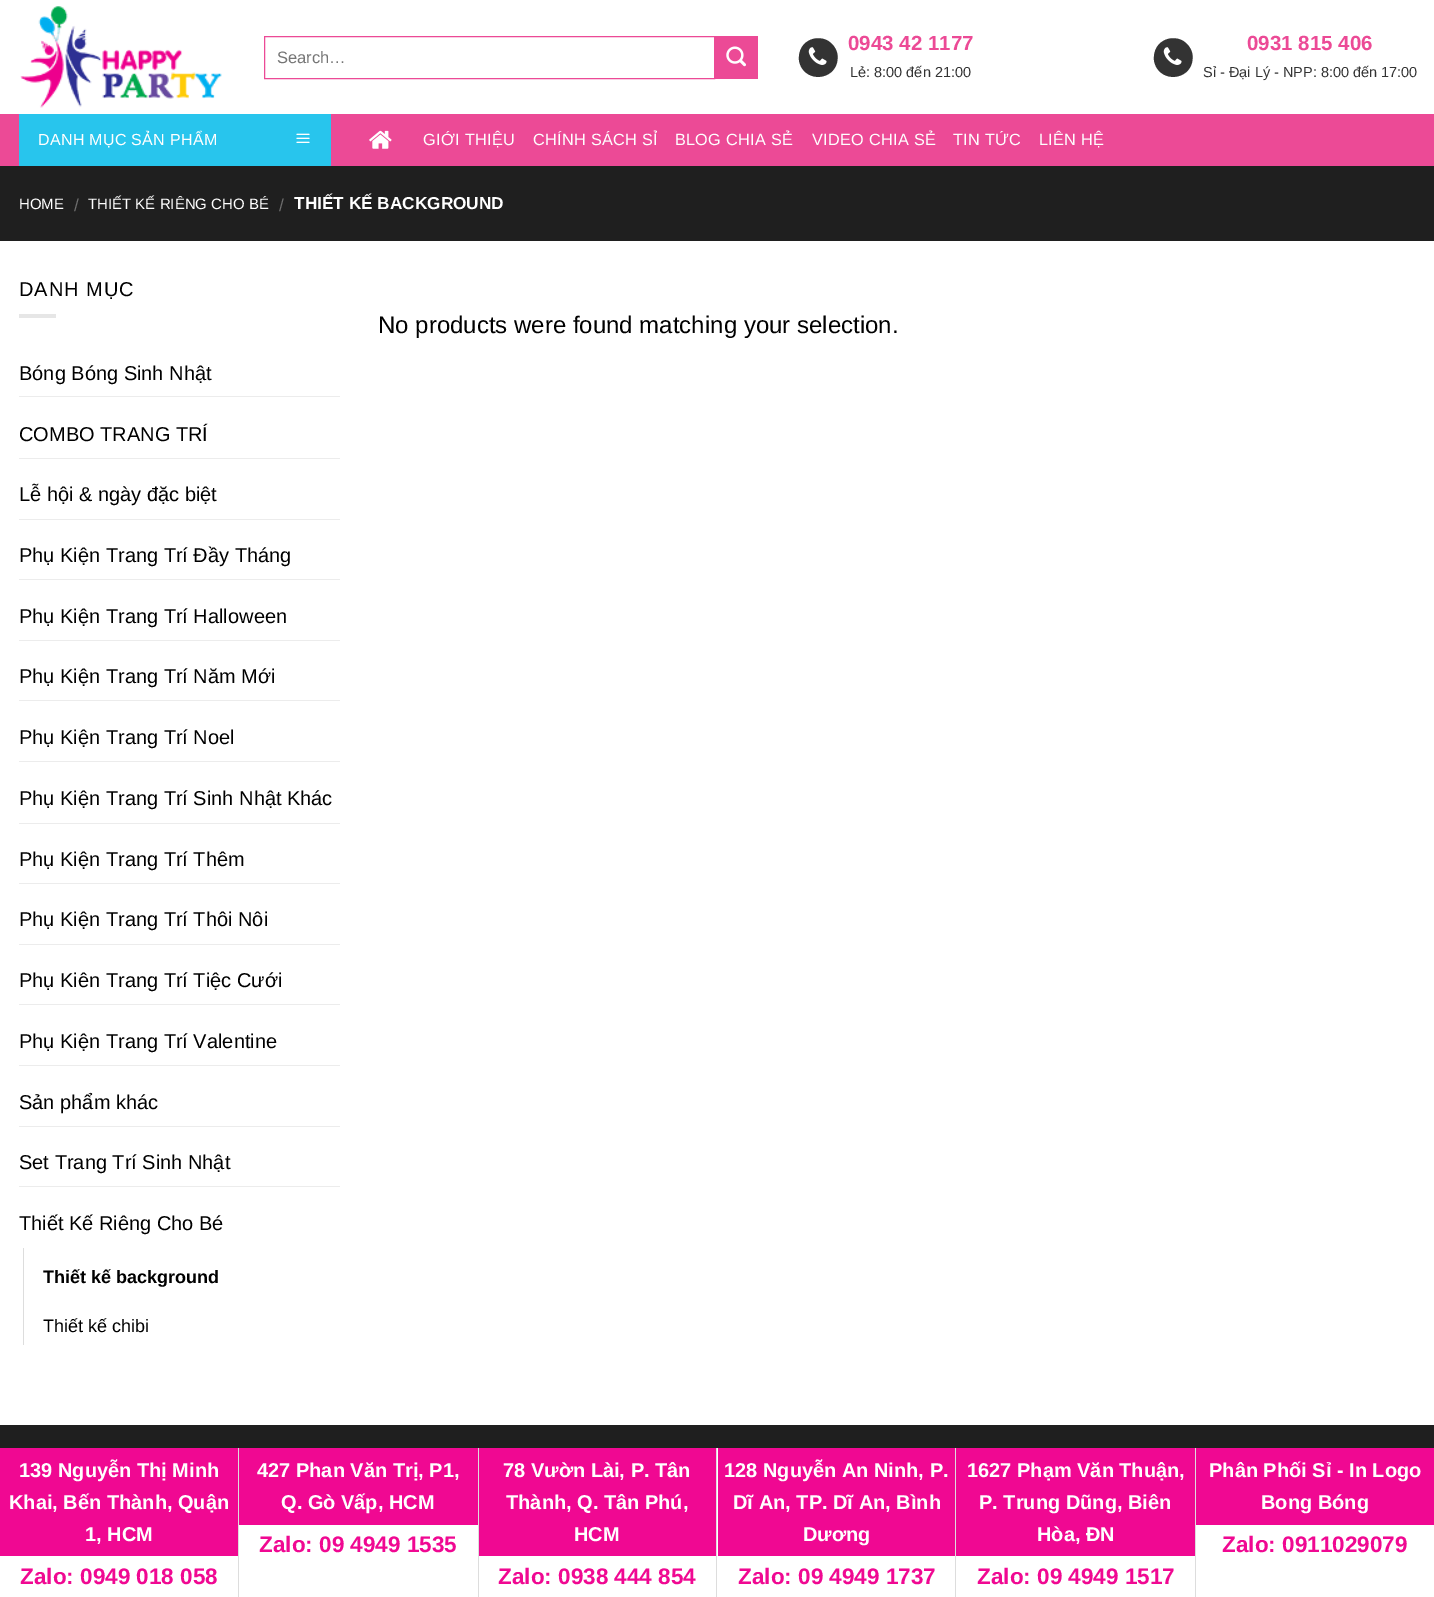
%!PS
<< /PageSize [1434 1597] >> setpagedevice
/rgb { 3 { 255 div 3 1 roll } repeat setrgbcolor } def
/font { [ exch dup neg 0 0 3 -1 roll 0 0 ] selectfont } def
/text { moveto show } def
/picture { 5 dict begin { /h /w /y /x /name } { exch def } forall
  gsave x y translate w h scale
  w h 8 [w 0 0 h 0 0] name (r) file false 3 colorimage grestore end } def
0 1597 translate 1 -1 scale
4 setmiterlimit
255 255 255 rgb
0 0 1434 1597 rectfill
(img_01.rgb) 20 6 202 102 picture
236 74 150 rgb
264.5 36.5 450 42 rectstroke
715 36 43 43 rectfill
(img_02.rgb) 726 46 20 21 picture
51 51 51 rgb
835 48 moveto 2 3 3 7 2.5 11 rcurveto -1 19 -26.5 24.5 -36 8.5 rcurveto -2 -3.5 -3 -7.5 -2.5 -11 rcurveto 1 -19.5 26.5 -25 36 -8.5 rcurveto closepath fill
(img_03.rgb) 808 47 19 18 picture
1190 48 moveto 2 3 3 7 2.5 11 rcurveto -1 19 -26.5 24.5 -36 8.5 rcurveto -2 -3.5 -3 -7.5 -2.5 -11 rcurveto 1 -19.5 26.5 -25 36 -8.5 rcurveto closepath fill
(img_03.rgb) 1163 47 19 18 picture
236 74 150 rgb
0 114 1434 52 rectfill
40 197 237 rgb
19 114 312 52 rectfill
(img_04.rgb) 296 133 14 10 picture
(img_05.rgb) 369 130 23 19 picture
31 31 31 rgb
0 166 1434 75 rectfill
230 230 230 rgb
19 314 37 4 rectfill
236 236 236 rgb
19 396 321 1 rectfill
19 458 321 1 rectfill
19 519 321 1 rectfill
19 579 321 1 rectfill
19 640 321 1 rectfill
19 700 321 1 rectfill
19 761 321 1 rectfill
19 823 321 1 rectfill
19 883 321 1 rectfill
19 944 321 1 rectfill
19 1004 321 1 rectfill
19 1065 321 1 rectfill
19 1126 321 1 rectfill
19 1186 321 1 rectfill
221 221 221 rgb
23 1248 1 97 rectfill
31 31 31 rgb
0 1425 1434 23 rectfill
221 221 221 rgb
238 1448 1 149 rectfill
240 8 146 rgb
0 1448 238 108 rectfill
221 221 221 rgb
478 1448 1 149 rectfill
240 8 146 rgb
239 1448 239 77 rectfill
221 221 221 rgb
716 1448 1 149 rectfill
240 8 146 rgb
479 1448 237 108 rectfill
221 221 221 rgb
955 1448 1 149 rectfill
240 8 146 rgb
718 1448 237 108 rectfill
221 221 221 rgb
1195 1448 1 149 rectfill
240 8 146 rgb
956 1448 239 108 rectfill
1196 1448 238 77 rectfill
/LiberationSans-Regular 16.5 font
117 117 117 rgb
(Search…) 277 63 text
/LiberationSans-Bold 20.5 font
236 74 150 rgb
(0943 42 1177) 848 50 text
/LiberationSans-Regular 14.5 font
51 51 51 rgb
(Lẻ: 8:00 đến 21:00) 850 77 text
/LiberationSans-Bold 20.5 font
236 74 150 rgb
(0931 815 406) 1247 50 text
/LiberationSans-Regular 14.5 font
51 51 51 rgb
(Sỉ - Đại Lý - NPP: 8:00 đến 17:00) 1203 77 text
/LiberationSans-Regular 16 font
255 255 255 rgb
38 145 moveto 0.3 0 (DANH MỤC SẢN PHẨM) ashow
/LiberationSans-Regular 16.25 font
423 145 moveto 0.3 0 (GIỚI THIỆU) ashow
533 145 moveto 0.3 0 (CHÍNH SÁCH SỈ) ashow
675 145 moveto 0.3 0 (BLOG CHIA SẺ) ashow
812 145 moveto 0.3 0 (VIDEO CHIA SẺ) ashow
953 145 moveto 0.3 0 (TIN TỨC) ashow
1039 145 moveto 0.3 0 (LIÊN HỆ) ashow
/LiberationSans-Regular 15 font
(HOME) 19 209 text
/LiberationSans-Regular 17.25 font
109 109 109 rgb
(/) 74 211 text
/LiberationSans-Regular 15 font
255 255 255 rgb
(THIẾT KẾ RIÊNG CHO BÉ) 88 209 text
/LiberationSans-Regular 17.25 font
109 109 109 rgb
(/) 279 211 text
/LiberationSans-Bold 17.25 font
255 255 255 rgb
(THIẾT KẾ BACKGROUND) 294 209 text
/LiberationSans-Regular 20 font
0 0 0 rgb
19 296 moveto 1 0 (DANH MỤC) ashow
(Bóng Bóng Sinh Nhật) 19 380 text
(COMBO TRANG TRÍ) 19 441 text
(Lễ hội & ngày đặc biệt) 19 501 text
(Phụ Kiện Trang Trí Đầy Tháng) 19 562 text
(Phụ Kiện Trang Trí Halloween) 19 623 text
(Phụ Kiện Trang Trí Năm Mới) 19 683 text
(Phụ Kiện Trang Trí Noel) 19 744 text
(Phụ Kiện Trang Trí Sinh Nhật Khác) 19 805 text
(Phụ Kiện Trang Trí Thêm) 19 866 text
(Phụ Kiện Trang Trí Thôi Nôi) 19 926 text
(Phụ Kiên Trang Trí Tiệc Cưới) 19 987 text
(Phụ Kiện Trang Trí Valentine) 19 1048 text
(Sản phẩm khác) 19 1109 text
(Set Trang Trí Sinh Nhật) 19 1169 text
(Thiết Kế Riêng Cho Bé) 19 1230 text
/LiberationSans-Bold 18 font
(Thiết kế background) 43 1283 text
/LiberationSans-Regular 18 font
(Thiết kế chibi) 43 1332 text
/LiberationSans-Regular 24 font
(No products were found matching your selection.) 378 333 text
/LiberationSans-Bold 20 font
255 255 255 rgb
(139 Nguyễn Thị Minh) 19 1477 text
(Khai, Bến Thành, Quận) 9 1509 text
(1, HCM) 85 1541 text
/LiberationSans-Bold 22.5 font
240 8 146 rgb
(Zalo: 0949 018 058) 20 1584 text
/LiberationSans-Bold 20 font
255 255 255 rgb
(427 Phan Văn Trị, P1,) 257 1477 text
(Q. Gò Vấp, HCM) 281 1509 text
/LiberationSans-Bold 22.5 font
240 8 146 rgb
(Zalo: 09 4949 1535) 259 1552 text
/LiberationSans-Bold 20 font
255 255 255 rgb
(78 Vườn Lài, P. Tân) 503 1477 text
(Thành, Q. Tân Phú,) 506 1509 text
(HCM) 574 1541 text
/LiberationSans-Bold 22.5 font
240 8 146 rgb
(Zalo: 0938 444 854) 498 1584 text
/LiberationSans-Bold 20 font
255 255 255 rgb
(128 Nguyễn An Ninh, P.) 724 1477 text
(Dĩ An, TP. Dĩ An, Bình) 733 1509 text
(Dương) 803 1541 text
/LiberationSans-Bold 22.5 font
240 8 146 rgb
(Zalo: 09 4949 1737) 738 1584 text
/LiberationSans-Bold 20 font
255 255 255 rgb
(1627 Phạm Văn Thuận,) 967 1477 text
(P. Trung Dũng, Biên) 979 1509 text
(Hòa, ĐN) 1037 1541 text
/LiberationSans-Bold 22.5 font
240 8 146 rgb
(Zalo: 09 4949 1517) 977 1584 text
/LiberationSans-Bold 20 font
255 255 255 rgb
(Phân Phối Sỉ - In Logo) 1209 1477 text
(Bong Bóng) 1261 1509 text
/LiberationSans-Bold 22.5 font
240 8 146 rgb
(Zalo: 0911029079) 1222 1552 text
showpage
